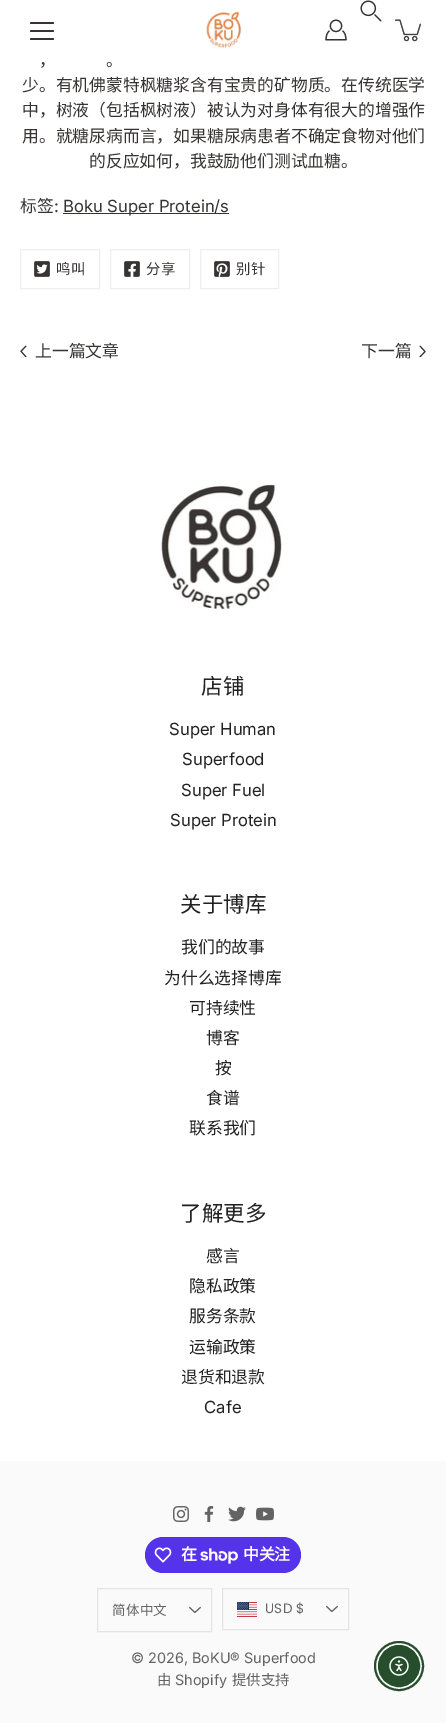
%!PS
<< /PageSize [446 1723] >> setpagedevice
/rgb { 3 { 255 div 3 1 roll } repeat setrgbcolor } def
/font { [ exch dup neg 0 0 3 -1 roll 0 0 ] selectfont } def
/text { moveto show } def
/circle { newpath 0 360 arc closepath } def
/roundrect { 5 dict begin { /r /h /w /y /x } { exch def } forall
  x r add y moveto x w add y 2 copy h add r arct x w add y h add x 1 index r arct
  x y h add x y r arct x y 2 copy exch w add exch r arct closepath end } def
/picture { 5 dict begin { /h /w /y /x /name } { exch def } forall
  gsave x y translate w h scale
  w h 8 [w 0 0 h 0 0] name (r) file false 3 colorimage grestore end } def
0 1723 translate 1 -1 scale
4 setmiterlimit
255 255 255 rgb
0 0 446 1723 rectfill
(img_01.rgb) 360 0 22 22 picture
56 51 51 rgb
30 30 24 2 1 roundrect fill
30 22 24 2 1 roundrect fill
30 38 24 2 1 roundrect fill
(img_02.rgb) 325 19 22 22 picture
(img_03.rgb) 395 19 26 23 picture
(img_04.rgb) 206 10 36 39 picture
63 213 166 1 rectfill
239 239 239 rgb
20.5 249.5 79 39 rectstroke
(img_05.rgb) 34 261 16 16 picture
110.5 249.5 79 39 rectstroke
(img_06.rgb) 124 261 16 16 picture
200.5 249.5 78 39 rectstroke
(img_07.rgb) 214 261 16 16 picture
(img_08.rgb) 20 345 7 13 picture
(img_09.rgb) 419 345 7 13 picture
(img_10.rgb) 161 483 121 127 picture
250 250 250 rgb
0 1461 446 262 rectfill
(img_11.rgb) 173 1506 16 16 picture
(img_12.rgb) 204 1506 10 16 picture
(img_13.rgb) 228 1506 18 16 picture
(img_14.rgb) 256 1507 18 14 picture
84 51 235 rgb
145 1537 156 36 18 roundrect fill
(img_15.rgb) 154 1547 18 16 picture
(img_16.rgb) 200 1548 38 16 picture
228 228 228 rgb
97.5 1588.5 114 43 rectstroke
(img_17.rgb) 189 1606 12 8 picture
222.5 1588.5 126 41 rectstroke
(img_18.rgb) 237 1602 20 15 picture
(img_17.rgb) 326 1605 12 8 picture
38 78 45 rgb
2 setlinewidth
399 1666 24 circle stroke
399 1666 20.5 circle gsave fill grestore
1 setlinewidth
stroke
(img_19.rgb) 389 1656 20 20 picture
/NotoSansCJKSC-Regular 16.8 font
56 51 51 rgb
(，) 39 66 text
(。) 106 66 text
(少。有机佛蒙特枫糖浆含有宝贵的矿物质。在传统医学) 22 91 text
(中，树液（包括枫树液）被认为对身体有很大的增强作) 22 116 text
(用。就糖尿病而言，如果糖尿病患者不确定食物对他们) 22 142 text
(的反应如何，我鼓励他们测试血糖。) 89 167 text
(标签) 20 212 text
/Inter-Regular 16.8 font
(:) 54 212 text
/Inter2-Regular 16.8 font
(Boku Super Protein/s) 63 212 text
/NotoSansCJKSC-Regular 14.4 font
56 274 moveto 1 0 (鸣叫) ashow
146 274 moveto 1 0 (分享) ashow
236 274 moveto 1 0 (别针) ashow
/NotoSansCJKSC-Regular 16.8 font
(上一篇文章) 35 357 text
(下一篇) 361 357 text
/NotoSansCJKSC-Regular 21.5 font
34 34 34 rgb
(店铺) 201 694 text
/Inter2-Regular 16.8 font
(Super Human) 169 735 text
(Superfood) 182 765 text
(Super Fuel) 181 796 text
(Super Protein) 170 826 text
/NotoSansCJKSC-Regular 21.5 font
(关于博库) 180 912 text
/NotoSansCJKSC-Regular 16.8 font
(我们的故事) 181 953 text
(为什么选择博库) 164 984 text
(可持续性) 189 1014 text
(博客) 206 1044 text
(按) 215 1074 text
(食谱) 206 1104 text
(联系我们) 189 1134 text
/NotoSansCJKSC-Regular 21.5 font
(了解更多) 180 1221 text
/NotoSansCJKSC-Regular 16.8 font
(感言) 206 1262 text
(隐私政策) 189 1292 text
(服务条款) 189 1322 text
(运输政策) 189 1353 text
(退货和退款) 181 1383 text
/Inter2-Regular 16.8 font
(Cafe) 204 1413 text
/NotoSansCJKSC-Bold 16 font
255 255 255 rgb
181 1560 moveto -0.5 0 (在) ashow
243 1560 moveto -0.5 0 (中关注) ashow
/NotoSansCJKSC-Regular 13.5 font
99 99 99 rgb
112 1615 moveto 0.25 0 (简体中文) ashow
/Poppins-Regular 13.5 font
265 1613 moveto 0.25 0 (USD $) ashow
/Inter-Regular 14.4 font
(© 2026, BoKU® Superfood) 131 1663 text
/NotoSansCJKSC-Regular 14.4 font
(由) 157 1685 text
/Inter-Regular 14.4 font
(Shopify) 175 1685 text
/NotoSansCJKSC-Regular 14.4 font
(提供支持) 232 1685 text
showpage
